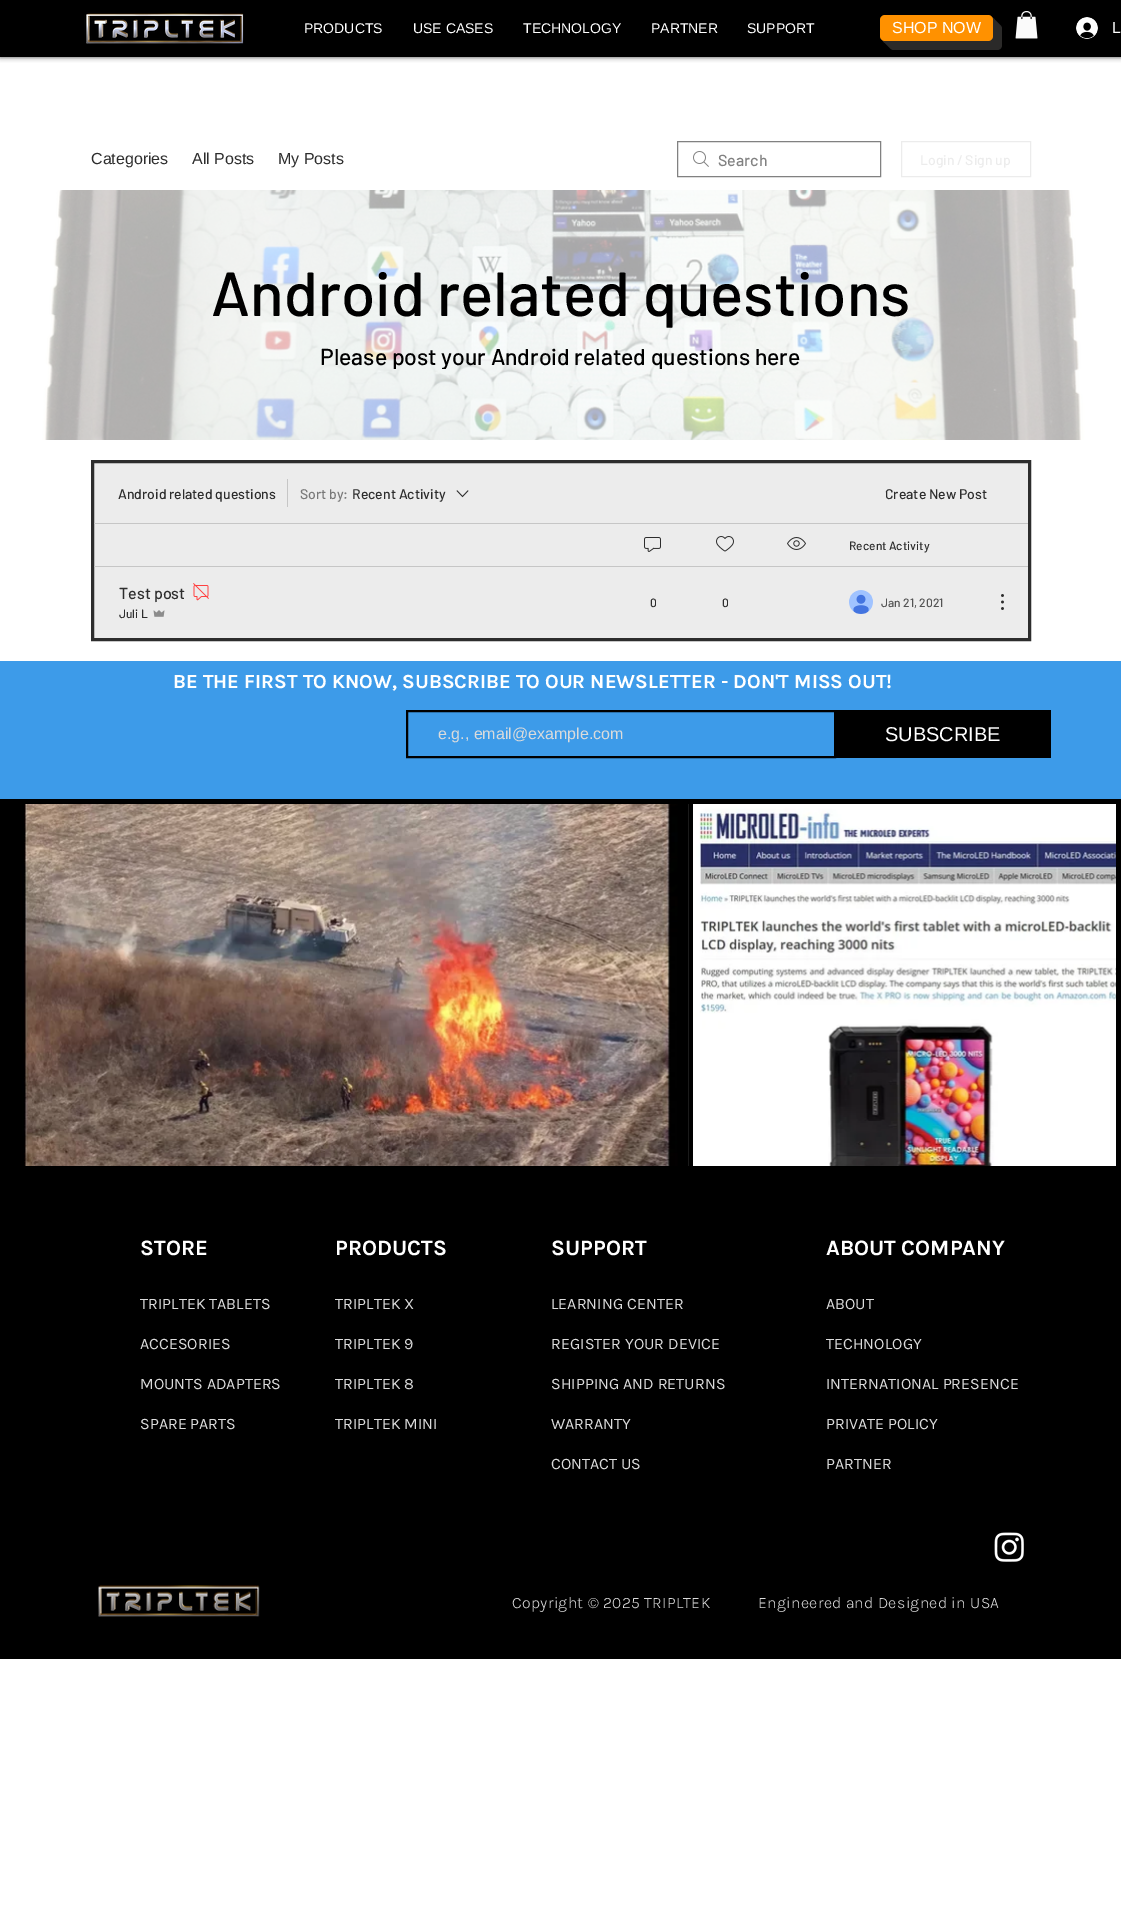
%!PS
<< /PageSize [1121 1927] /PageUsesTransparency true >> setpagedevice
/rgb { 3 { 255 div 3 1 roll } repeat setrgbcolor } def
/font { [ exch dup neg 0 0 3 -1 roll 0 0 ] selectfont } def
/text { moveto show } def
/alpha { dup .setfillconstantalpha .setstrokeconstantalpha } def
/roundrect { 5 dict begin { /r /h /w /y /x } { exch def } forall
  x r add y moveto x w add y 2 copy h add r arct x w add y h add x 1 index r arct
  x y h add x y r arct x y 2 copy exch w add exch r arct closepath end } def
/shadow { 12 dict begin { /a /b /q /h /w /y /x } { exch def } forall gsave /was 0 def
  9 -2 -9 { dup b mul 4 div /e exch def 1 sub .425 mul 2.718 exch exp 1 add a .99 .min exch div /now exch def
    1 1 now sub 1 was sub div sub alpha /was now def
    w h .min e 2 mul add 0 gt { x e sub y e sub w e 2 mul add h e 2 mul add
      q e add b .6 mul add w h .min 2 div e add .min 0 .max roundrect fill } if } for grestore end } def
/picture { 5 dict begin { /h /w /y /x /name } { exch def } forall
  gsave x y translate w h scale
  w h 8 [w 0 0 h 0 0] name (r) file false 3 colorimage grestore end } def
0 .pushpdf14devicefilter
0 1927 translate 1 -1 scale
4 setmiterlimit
255 255 255 rgb
0 0 1121 1927 rectfill
0 0 0 rgb
0 0 1121 57 0 2.5 0.7 shadow
0 0 1121 57 rectfill
(img_01.rgb) 84 12 160 32 picture
43 42 41 rgb
889 41 moveto 0 4 rlineto 0 3 2 5 5 5 rcurveto 103 0 rlineto 3 0 5 -2 5 -5 rcurveto 0 -16 rlineto 0 -3 -2 -5 -5 -5 rcurveto -4 0 rlineto 0 12 rlineto 0 3 -2 5 -5 5 rcurveto closepath fill
887 41 moveto 0 2 rlineto 0 3 2 5 5 5 rcurveto 103 0 rlineto 3 0 5 -2 5 -5 rcurveto 0 -16 rlineto 0 -3 -2 -5 -5 -5 rcurveto -2 0 rlineto 0 14 rlineto 0 3 -2 5 -5 5 rcurveto closepath fill
885 41 moveto 0 3 2 5 5 5 rcurveto 103 0 rlineto 3 0 5 -2 5 -5 rcurveto 0 -16 rlineto 0 -3 -2 -5 -5 -5 rcurveto 0 16 rlineto 0 3 -2 5 -5 5 rcurveto closepath fill
883 41 moveto 1 2 3 3 5 3 rcurveto 103 0 rlineto 3 0 5 -2 5 -5 rcurveto 0 -16 rlineto 0 -2 -1 -4 -3 -5 rcurveto 0 19 rlineto -2 8 -22 4 -22 4 rcurveto closepath fill
882 40 moveto 1 1 2 2 4 2 rcurveto 103 0 rlineto 3 0 5 -2 5 -5 rcurveto 0 -16 rlineto 0 -2 -1 -3 -2 -4 rcurveto 2 3 1 8 1 11 rcurveto 0 9 rlineto -2 8 -22 4 -22 4 rcurveto -87 0 rlineto closepath fill
255 145 0 rgb
880 15 113 26 5 roundrect fill
(img_02.rgb) 1015 11 23 28 picture
(img_03.rgb) 1076 17 22 22 picture
(img_04.rgb) 693 151 16 16 picture
129 129 129 rgb
677.5 141.5 203 35 rectstroke
236 236 236 rgb
901.5 141.5 129 35 rectstroke
(img_05.rgb) 42 190 1043 250 picture
92.5 461.5 moveto 937 0 rlineto 0 178 rlineto -937 0 rlineto closepath gsave fill grestore
45 45 45 rgb
3 setlinewidth
stroke
198 198 198 rgb
287 479 1 28 rectfill
(img_06.rgb) 456 490 13 8 picture
94 523 934 1 rectfill
(img_07.rgb) 644 537 17 15 picture
(img_08.rgb) 716 536 18 16 picture
(img_09.rgb) 787 537 19 13 picture
94 566 934 1 rectfill
(img_10.rgb) 193 583 16 18 picture
(img_11.rgb) 153 610 12 7 picture
(img_12.rgb) 849 590 24 24 picture
(img_13.rgb) 1001 594 3 16 picture
61 155 233 rgb
0 661 1121 138 rectfill
0 0 0 rgb
2 setlinewidth
407 711 428 46 rectstroke
836 710 215 48 rectfill
0 799 1121 860 rectfill
(img_14.rgb) 5 804 684 362 picture
(img_15.rgb) 693 804 423 362 picture
(img_16.rgb) 994 1532 30 30 picture
(img_17.rgb) 98 1585 162 32 picture
/LiberationSans-Regular 14 font
255 255 255 rgb
(PRODUCTS) 304 33 text
(USE CASES) 413 33 text
(TECHNOLOGY) 523 33 text
(PARTNER) 651 33 text
(SUPPORT) 747 33 text
/LiberationSans-Regular 16 font
(SHOP NOW) 892 33 text
(L) 1112 33 text
45 45 45 rgb
(Categories) 91 164 text
(All Posts) 192 164 text
(My Posts) 278 164 text
/Barlow-Medium 16 font
129 129 129 rgb
(Search) 718 166 text
/Barlow-Medium 14 font
236 236 236 rgb
(Login / Sign up) 920 165 text
/Barlow-Medium 62 font
0 0 0 rgb
(Android related questions) 211 316 text
gsave
221 344 680 25 rectclip
/Barlow-Medium 23 font
(Please post your Android related questions here) 320 365 text
grestore
/Barlow-Medium 14 font
45 45 45 rgb
(Android related questions) 118 499 text
121 121 121 rgb
(Sort by:) 300 499 text
45 45 45 rgb
(Recent Activity) 352 499 text
(Create New Post) 885 499 text
/Barlow-Medium 12 font
(Recent Activity) 849 550 text
/Barlow-Medium 16 font
(Test post) 119 599 text
/Barlow-Medium 12 font
(Juli L) 119 618 text
(0) 650 607 text
(0) 722 607 text
83 83 83 rgb
(Jan 21, 2021) 881 607 text
/Karla-Bold 20 font
255 255 255 rgb
(BE THE FIRST TO KNOW, SUBSCRIBE TO OUR NEWSLETTER - DON'T MISS OUT!) 173 688 text
/LiberationSans-Regular 16 font
219 219 219 rgb
(e.g., email@example.com) 438 739 text
/LiberationSans-Regular 20 font
255 255 255 rgb
(SUBSCRIBE) 885 741 text
/Karla-Bold 22 font
(STORE) 140 1255 text
(PRODUCTS) 335 1255 text
/Karla-Regular 16 font
219 219 219 rgb
(TRIPLTEK X) 335 1309 text
(TRIPLTEK 9) 335 1349 text
(TRIPLTEK 8) 335 1389 text
(TRIPLTEK MINI) 335 1429 text
/Karla-Bold 22 font
255 255 255 rgb
(SUPPORT) 551 1255 text
/Karla-Regular 16 font
219 219 219 rgb
(LEARNING CENTER) 551 1309 text
(REGISTER YOUR DEVICE) 551 1349 text
(SHIPPING AND RETURNS) 551 1389 text
(WARRANTY) 551 1429 text
(CONTACT US) 551 1469 text
/Karla-Bold 22 font
255 255 255 rgb
(ABOUT COMPANY) 826 1255 text
/Karla-Regular 16 font
219 219 219 rgb
(ABOUT) 826 1309 text
(TECHNOLOGY) 826 1349 text
(INTERNATIONAL PRESENCE) 826 1389 text
(PRIVATE POLICY) 826 1429 text
(PARTNER) 826 1469 text
(TRIPLTEK TABLETS) 140 1309 text
(ACCESORIES) 140 1349 text
(MOUNTS ADAPTERS) 140 1389 text
(SPARE PARTS) 140 1429 text
/Karla-Light 16 font
512 1608 moveto 0.32 0 (Copyright © 2025 TRIPLTEK            Engineered and Designed in USA) ashow
.poppdf14devicefilter showpage
